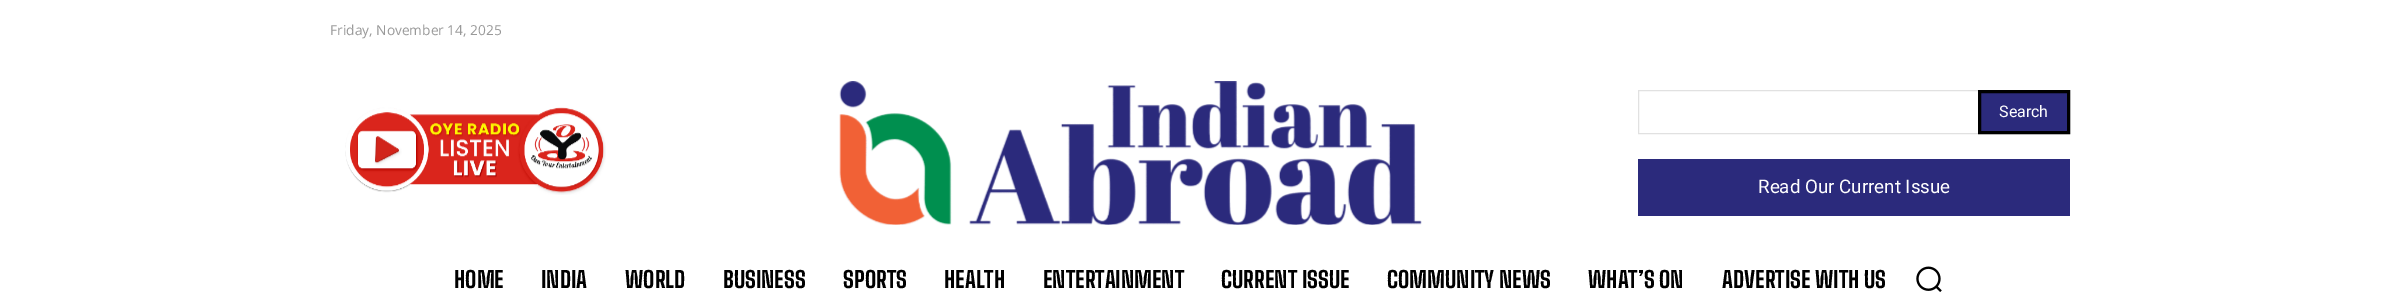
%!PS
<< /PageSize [2400 302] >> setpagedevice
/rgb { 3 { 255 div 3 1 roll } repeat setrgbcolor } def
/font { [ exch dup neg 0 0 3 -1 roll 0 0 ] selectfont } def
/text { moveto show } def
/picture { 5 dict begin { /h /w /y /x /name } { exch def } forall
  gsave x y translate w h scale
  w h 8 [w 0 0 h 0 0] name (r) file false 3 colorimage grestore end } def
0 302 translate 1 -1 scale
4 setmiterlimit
255 255 255 rgb
0 0 2400 302 rectfill
(img_01.rgb) 345 107 261 88 picture
(img_02.rgb) 839 81 583 144 picture
225 225 225 rgb
1638.5 90.5 431 43 rectstroke
43 42 124 rgb
1979.5 91.5 moveto 89 0 rlineto 0 41 rlineto -89 0 rlineto closepath gsave fill grestore
0 0 0 rgb
3 setlinewidth
stroke
43 42 124 rgb
1638 159 432 57 rectfill
(img_03.rgb) 1916 266 26 26 picture
/OpenSans-Regular 13.75 font
153 153 153 rgb
(Friday, November 14, 2025) 330 35 text
/Roboto-Regular 16 font
255 255 255 rgb
(Search) 1999 117 text
/Roboto-Regular 18.75 font
(Read Our Current Issue) 1758 193 text
/BigShouldersText-ExtraBold 22.5 font
0 0 0 rgb
(HOME) 454 288 text
(INDIA) 541 288 text
(WORLD) 625 288 text
(BUSINESS) 723 288 text
(SPORTS) 843 288 text
(HEALTH) 944 288 text
(ENTERTAINMENT) 1043 288 text
(CURRENT ISSUE) 1221 288 text
(COMMUNITY NEWS) 1387 288 text
(WHAT’S ON) 1588 288 text
(ADVERTISE WITH US) 1722 288 text
showpage
